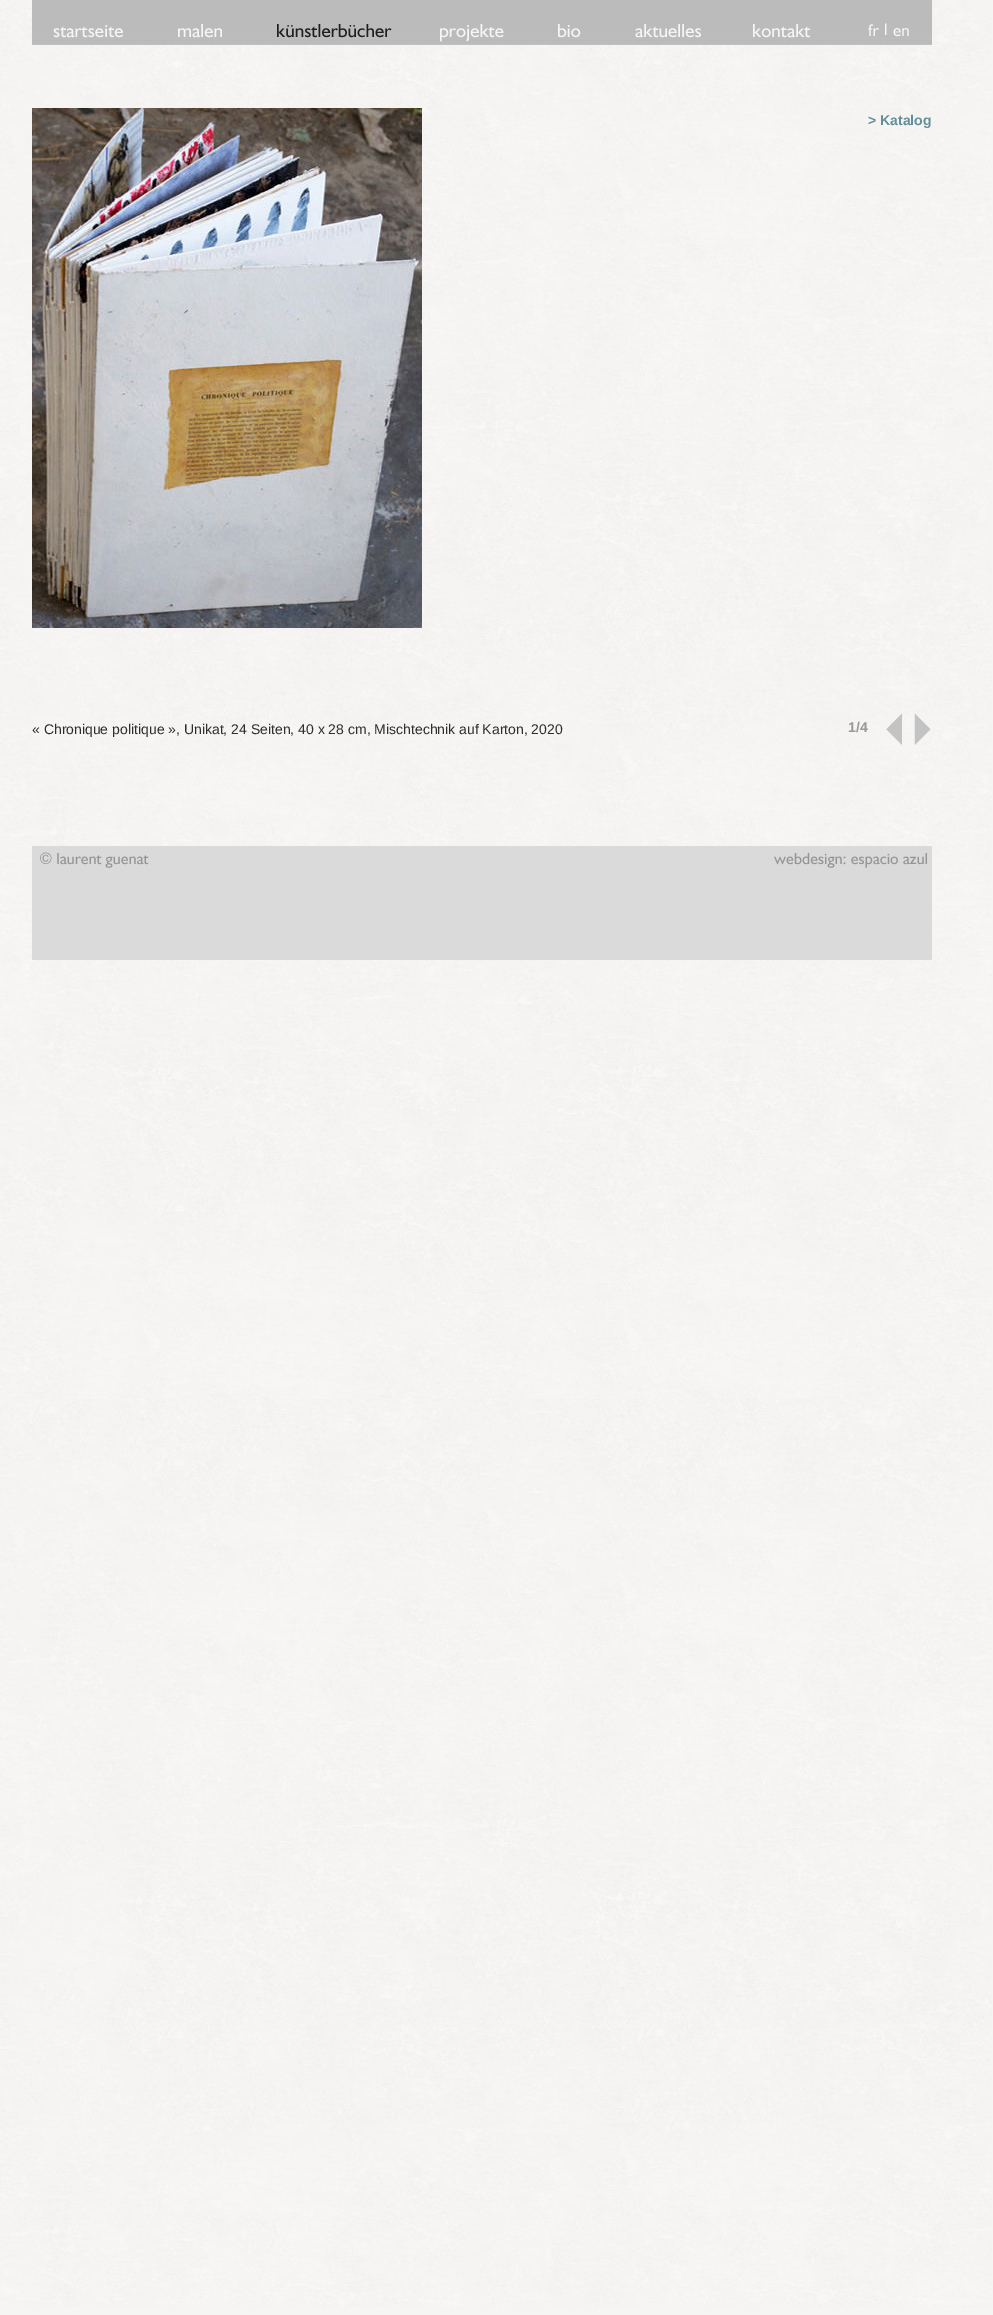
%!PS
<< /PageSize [993 2315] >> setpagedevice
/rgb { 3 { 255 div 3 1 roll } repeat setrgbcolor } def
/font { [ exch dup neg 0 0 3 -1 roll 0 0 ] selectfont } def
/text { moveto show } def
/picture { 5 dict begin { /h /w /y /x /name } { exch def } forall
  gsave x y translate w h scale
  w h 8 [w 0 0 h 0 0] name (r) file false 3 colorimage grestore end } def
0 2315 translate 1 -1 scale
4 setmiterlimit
246 245 243 rgb
0 0 993 2315 rectfill
(img_01.rgb) 0 0 992 2307 picture
(img_02.rgb) 32 0 900 45 picture
(img_03.rgb) 53 25 70 13 picture
(img_04.rgb) 178 24 44 14 picture
(img_05.rgb) 277 24 115 14 picture
(img_06.rgb) 440 24 64 18 picture
(img_07.rgb) 558 24 23 14 picture
(img_08.rgb) 635 24 66 14 picture
(img_09.rgb) 753 24 57 14 picture
(img_10.rgb) 868 24 11 12 picture
(img_11.rgb) 885 23 2 12 picture
(img_12.rgb) 893 28 16 9 picture
(img_13.rgb) 32 108 390 520 picture
(img_14.rgb) 886 713 16 32 picture
(img_15.rgb) 914 713 17 32 picture
218 218 218 rgb
32 846 900 114 rectfill
(img_16.rgb) 40 852 109 16 picture
(img_17.rgb) 774 853 153 15 picture
/LiberationSans-Bold 14 font
98 143 151 rgb
(> Katalog) 868 125 text
/LiberationSans-Regular 14 font
47 46 46 rgb
(« Chronique politique », Unikat, 24 Seiten, 40 x 28 cm, Mischtechnik auf Karton, 2020) 32 734 text
/LiberationSans-Bold 14 font
153 153 153 rgb
(1/4) 848 732 text
showpage
